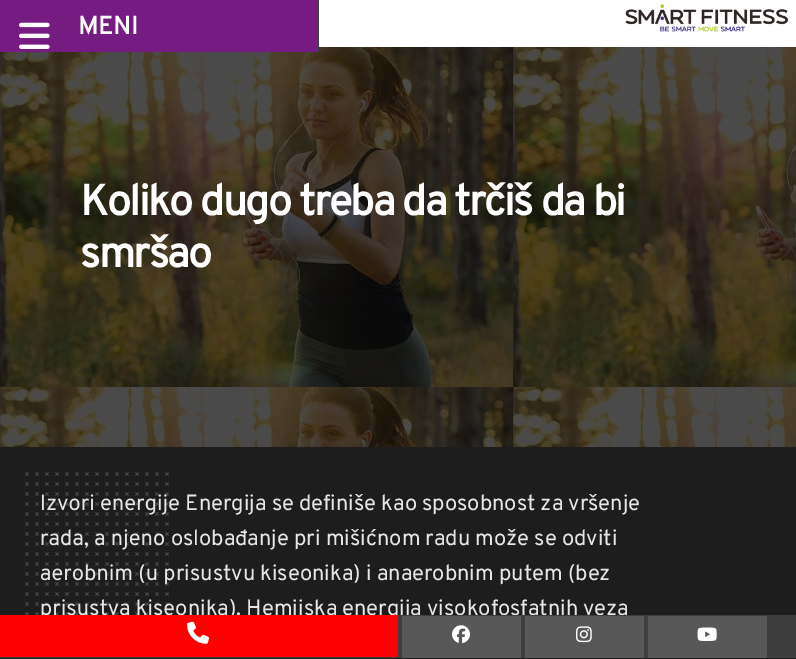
%!PS
<< /PageSize [796 659] >> setpagedevice
/rgb { 3 { 255 div 3 1 roll } repeat setrgbcolor } def
/font { [ exch dup neg 0 0 3 -1 roll 0 0 ] selectfont } def
/text { moveto show } def
/picture { 5 dict begin { /h /w /y /x /name } { exch def } forall
  gsave x y translate w h scale
  w h 8 [w 0 0 h 0 0] name (r) file false 3 colorimage grestore end } def
0 659 translate 1 -1 scale
4 setmiterlimit
255 255 255 rgb
0 0 796 659 rectfill
(img_03.rgb) 0 47 796 400 picture
57 62 69 rgb
318 0 1 52 rectfill
118 27 130 rgb
0 0 318 52 rectfill
(img_01.rgb) 19 22 31 27 picture
(img_02.rgb) 625 4 164 28 picture
29 29 29 rgb
0 447 796 212 rectfill
/Overpass-Bold 25 font
255 255 255 rgb
(MENI) 78 34 text
/Overpass-Bold 43 font
80 215 moveto -1.6 0 (Koliko dugo treba da trčiš da bi) ashow
80 267 moveto -1.6 0 (smršao) ashow
/Overpass-Regular 22 font
230 230 230 rgb
(Izvori energije Energija se definiše kao sposobnost za vršenje) 40 510 text
(rada, a njeno oslobađanje pri mišićnom radu može se odviti) 40 545 text
(aerobnim \(u prisustvu kiseonika\) i anaerobnim putem \(bez) 40 580 text
(prisustva kiseonika\). Hemijska energija visokofosfatnih veza) 40 615 text
(img_04.rgb) 25 472 144 143 picture
62 62 62 rgb
0 615 796 43 rectfill
255 0 0 rgb
0 615 398 42 rectfill
(img_05.rgb) 187 621 22 23 picture
88 88 88 rgb
402 616 119 42 rectfill
(img_06.rgb) 452 625 18 19 picture
525 616 119 42 rectfill
(img_07.rgb) 576 626 16 17 picture
648 616 119 42 rectfill
(img_08.rgb) 697 627 20 14 picture
showpage
